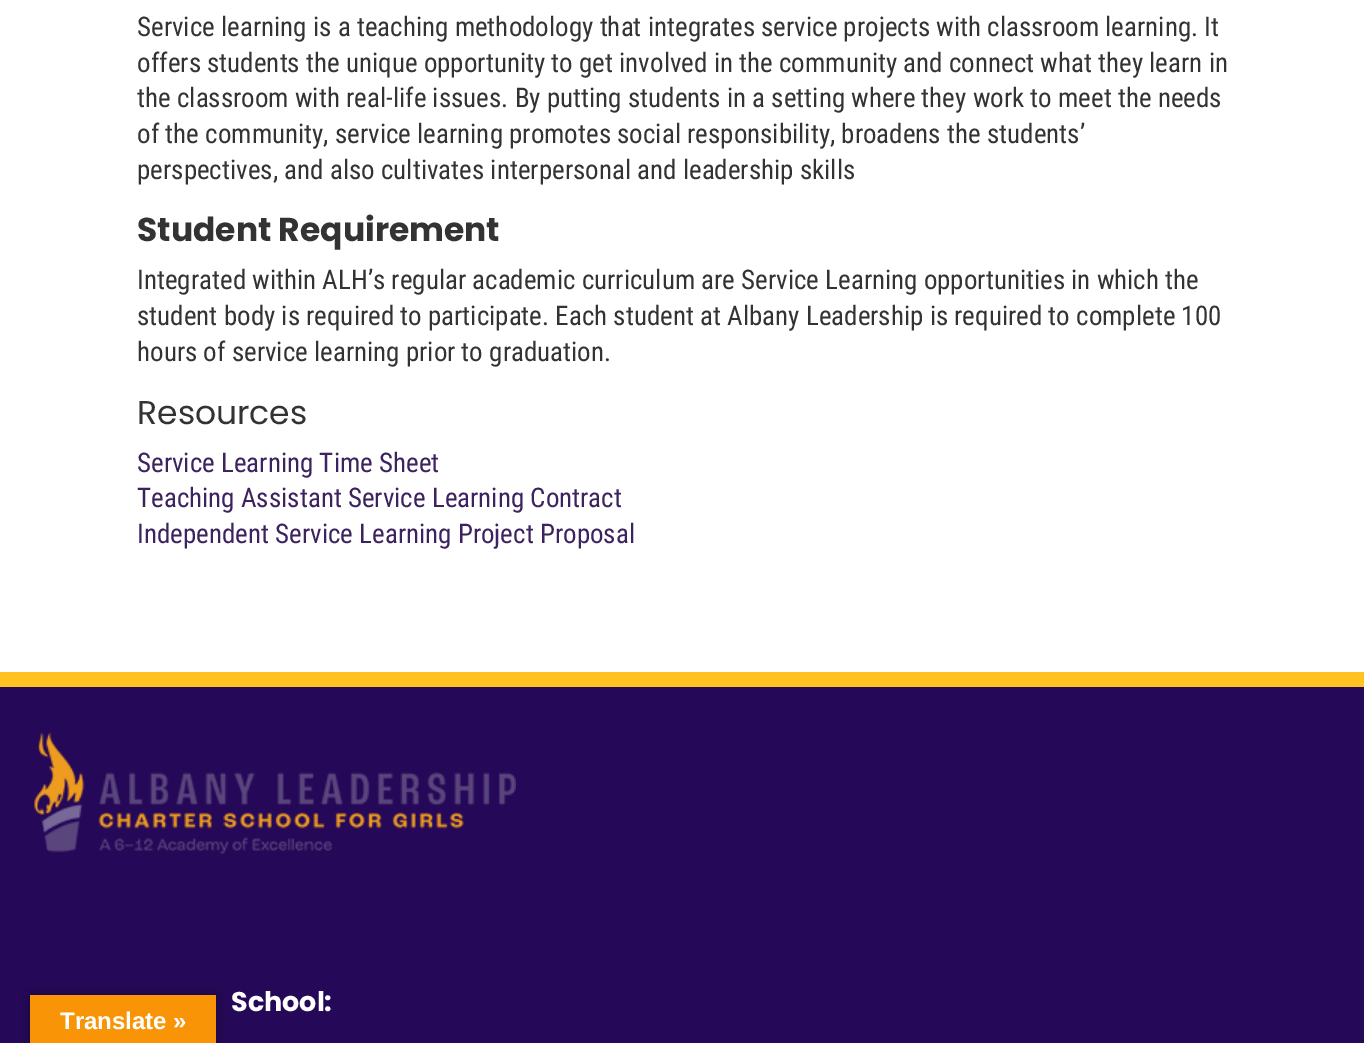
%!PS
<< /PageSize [1364 1043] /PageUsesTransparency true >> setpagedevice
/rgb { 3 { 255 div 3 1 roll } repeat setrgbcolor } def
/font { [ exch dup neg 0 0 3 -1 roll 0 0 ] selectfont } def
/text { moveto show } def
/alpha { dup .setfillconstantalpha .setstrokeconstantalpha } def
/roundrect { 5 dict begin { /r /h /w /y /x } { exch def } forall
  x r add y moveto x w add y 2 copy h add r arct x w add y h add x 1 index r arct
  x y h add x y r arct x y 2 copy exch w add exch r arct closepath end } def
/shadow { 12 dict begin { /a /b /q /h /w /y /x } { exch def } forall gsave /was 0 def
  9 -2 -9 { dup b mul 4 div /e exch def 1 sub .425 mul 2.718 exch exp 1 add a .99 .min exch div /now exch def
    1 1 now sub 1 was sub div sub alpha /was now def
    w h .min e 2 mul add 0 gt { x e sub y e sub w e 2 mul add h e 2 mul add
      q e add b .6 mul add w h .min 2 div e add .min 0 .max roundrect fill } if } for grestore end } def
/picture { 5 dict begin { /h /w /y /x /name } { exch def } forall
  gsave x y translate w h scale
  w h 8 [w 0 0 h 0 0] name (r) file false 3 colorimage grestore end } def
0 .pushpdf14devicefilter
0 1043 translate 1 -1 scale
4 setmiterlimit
255 255 255 rgb
0 0 1364 1043 rectfill
37 8 88 rgb
0 687 1364 356 rectfill
255 194 32 rgb
0 672 1364 15 rectfill
(img_01.rgb) 34 732 482 122 picture
0 0 0 rgb
30 995 186 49 0 7 0.3 shadow
248 148 6 rgb
30 995 186 48 rectfill
/RobotoCondensed-Regular 27 font
51 51 51 rgb
(Service learning is a teaching methodology that integrates service projects with classroom learning. It) 137 36 text
(offers students the unique opportunity to get involved in the community and connect what they learn in) 137 72 text
(the classroom with real-life issues. By putting students in a setting where they work to meet the needs) 137 107 text
(of the community, service learning promotes social responsibility, broadens the students’) 137 143 text
(perspectives, and also cultivates interpersonal and leadership skills) 137 179 text
/Poppins-Bold 33 font
(Student Requirement) 137 241 text
/RobotoCondensed-Regular 27 font
(Integrated within ALH’s regular academic curriculum are Service Learning opportunities in which the) 137 289 text
(student body is required to participate. Each student at Albany Leadership is required to complete 100) 137 325 text
(hours of service learning prior to graduation.) 137 361 text
/Poppins-Regular 33 font
(Resources) 137 424 text
/RobotoCondensed-Regular 27 font
60 34 94 rgb
(Service Learning Time Sheet) 137 472 text
(Teaching Assistant Service Learning Contract) 137 507 text
(Independent Service Learning Project Proposal) 137 543 text
/Poppins-Bold 27 font
255 255 255 rgb
(School:) 231 1011 text
/LiberationSans-Bold 24 font
(Translate ») 60 1029 text
.poppdf14devicefilter showpage
